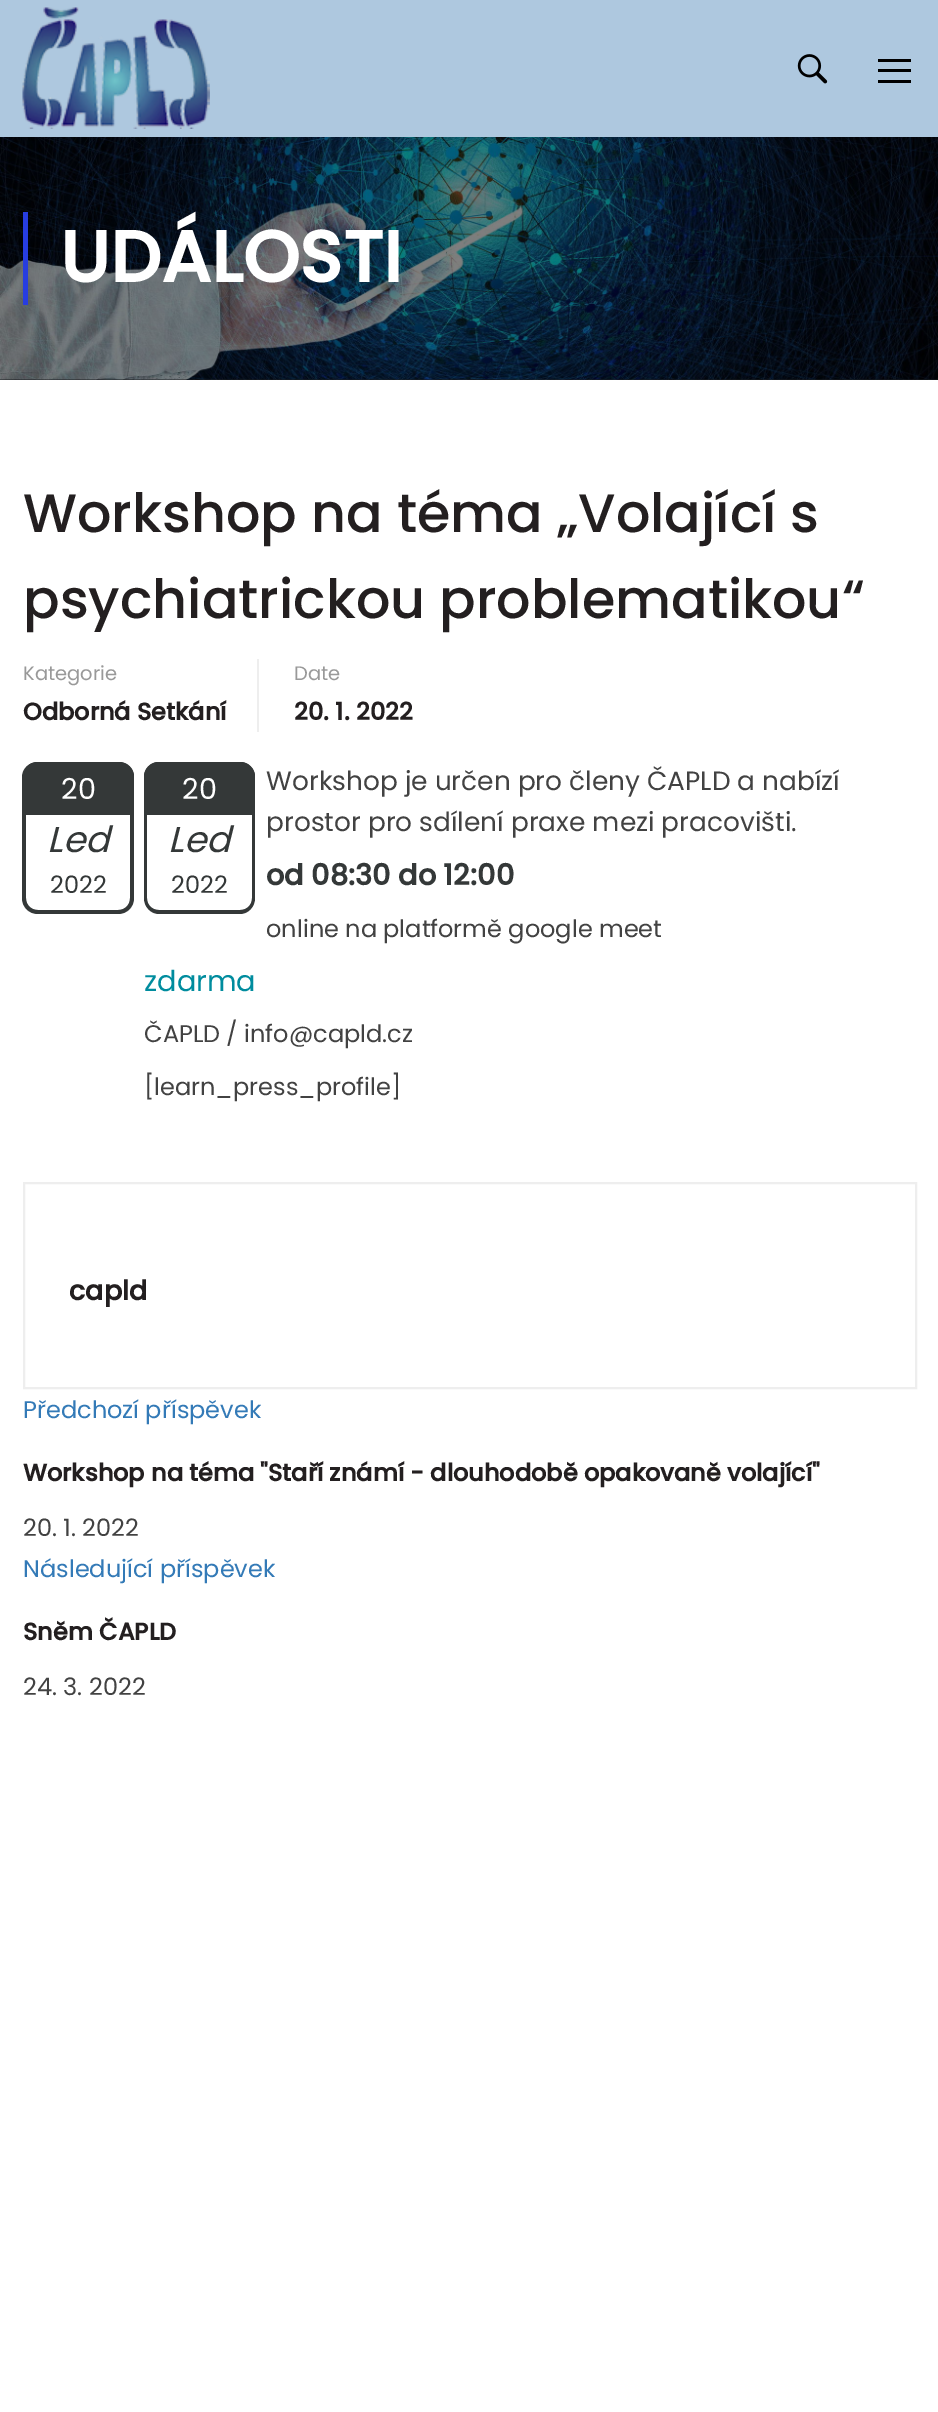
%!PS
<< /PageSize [938 2412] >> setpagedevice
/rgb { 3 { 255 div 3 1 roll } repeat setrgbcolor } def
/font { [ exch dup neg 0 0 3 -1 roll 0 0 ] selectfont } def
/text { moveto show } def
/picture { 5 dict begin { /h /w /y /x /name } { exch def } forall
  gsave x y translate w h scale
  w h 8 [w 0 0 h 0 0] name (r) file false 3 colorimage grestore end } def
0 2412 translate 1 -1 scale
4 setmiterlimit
255 255 255 rgb
0 0 938 2412 rectfill
174 200 223 rgb
0 0 938 137 rectfill
(img_01.rgb) 22 7 188 122 picture
(img_02.rgb) 797 54 31 30 picture
0 0 0 rgb
878 59 33 3 rectfill
878 69 33 3 rectfill
878 80 33 3 rectfill
28 31 34 rgb
0 379 938 1 rectfill
(img_03.rgb) 0 137 938 243 picture
39 61 225 rgb
23 212 5 93 rectfill
238 238 238 rgb
257 659 2 73 rectfill
52 56 56 rgb
38 762 moveto 81 0 rlineto 8.5 0 15 6.5 15 15 rcurveto 0 38 rlineto -111 0 rlineto 0 -38 rlineto 0 -8.5 6.5 -15 15 -15 rcurveto closepath fill
38 762 moveto 80 0 rlineto 9 0 16 7 16 15 rcurveto 0 37 rlineto -112 0 rlineto 0 -37 rlineto 0 -8 7 -15 16 -15 rcurveto closepath 38 765 moveto 80 0 rlineto 7 0 12 5 12 12 rcurveto 0 37 rlineto -104 0 rlineto 0 -37 rlineto 0 -7 5 -12 12 -12 rcurveto closepath eofill
22 814 moveto 112 0 rlineto 0 84 rlineto 0 9 -7 16 -16 16 rcurveto -80 0 rlineto -9 0 -16 -7 -16 -16 rcurveto closepath 26 814 moveto 104 0 rlineto 0 84 rlineto 0 7 -5 12 -12 12 rcurveto -80 0 rlineto -7 0 -12 -5 -12 -12 rcurveto closepath eofill
159 762 moveto 81 0 rlineto 8.5 0 15 6.5 15 15 rcurveto 0 38 rlineto -111 0 rlineto 0 -38 rlineto 0 -8.5 6.5 -15 15 -15 rcurveto closepath fill
159 762 moveto 81 0 rlineto 8 0 15 7 15 15 rcurveto 0 37 rlineto -111 0 rlineto 0 -37 rlineto 0 -8 7 -15 15 -15 rcurveto closepath 159 765 moveto 81 0 rlineto 7 0 12 5 12 12 rcurveto 0 37 rlineto -105 0 rlineto 0 -37 rlineto 0 -7 5 -12 12 -12 rcurveto closepath eofill
144 814 moveto 111 0 rlineto 0 84 rlineto 0 9 -7 16 -15 16 rcurveto -81 0 rlineto -8 0 -15 -7 -15 -16 rcurveto closepath 147 814 moveto 105 0 rlineto 0 84 rlineto 0 7 -5 12 -12 12 rcurveto -81 0 rlineto -7 0 -12 -5 -12 -12 rcurveto closepath eofill
238 238 238 rgb
2 setlinewidth
24 1183 892 205 rectstroke
/Poppins-Bold 72 font
255 255 255 rgb
(UDÁLOSTI) 60 282 text
/Poppins-Medium 54 font
35 31 32 rgb
(Workshop na téma „Volající s) 23 532 text
(psychiatrickou problematikou“) 23 618 text
/Poppins-Regular 19.5 font
153 153 153 rgb
(Kategorie) 23 680 text
/Poppins-Bold 24 font
35 31 32 rgb
(Odborná Setkání) 23 720 text
/Poppins-Regular 19.5 font
153 153 153 rgb
(Date) 294 680 text
/Poppins-Bold 24 font
35 31 32 rgb
(20. 1. 2022) 294 720 text
/Poppins-Regular 28.75 font
255 255 255 rgb
(20) 61 799 text
/Poppins-Italic 36 font
52 56 56 rgb
(Led) 47 852 text
/Poppins-Regular 24 font
(2022) 50 893 text
/Poppins-Regular 26.4 font
66 66 66 rgb
(Workshop je určen pro členy ČAPLD a nabízí) 266 790 text
(prostor pro sdílení praxe mezi pracovišti.) 266 831 text
/Poppins-Bold 28.75 font
52 56 56 rgb
(od 08:30 do 12:00) 266 885 text
/Poppins-Regular 24 font
66 66 66 rgb
(online na platformě google meet) 266 937 text
/Poppins-Regular 28.75 font
0 140 158 rgb
(zdarma) 144 991 text
/Poppins-Regular 24 font
66 66 66 rgb
(ČAPLD / info@capld.cz) 144 1042 text
([learn_press_profile]) 144 1095 text
/Poppins-Regular 28.75 font
255 255 255 rgb
(20) 182 799 text
/Poppins-Italic 36 font
52 56 56 rgb
(Led) 168 852 text
/Poppins-Regular 24 font
(2022) 171 893 text
/Poppins-Bold 27 font
35 31 32 rgb
(capld) 69 1300 text
/Poppins-Regular 24 font
51 122 183 rgb
(Předchozí příspěvek) 23 1418 text
/Poppins-Bold 24 font
35 31 32 rgb
(Workshop na téma "Staří známí - dlouhodobě opakovaně volající") 23 1481 text
/Poppins-Regular 24 font
66 66 66 rgb
(20. 1. 2022) 23 1536 text
51 122 183 rgb
(Následující příspěvek) 23 1577 text
/Poppins-Bold 24 font
35 31 32 rgb
(Sněm ČAPLD) 23 1640 text
/Poppins-Regular 24 font
66 66 66 rgb
(24. 3. 2022) 23 1695 text
showpage
